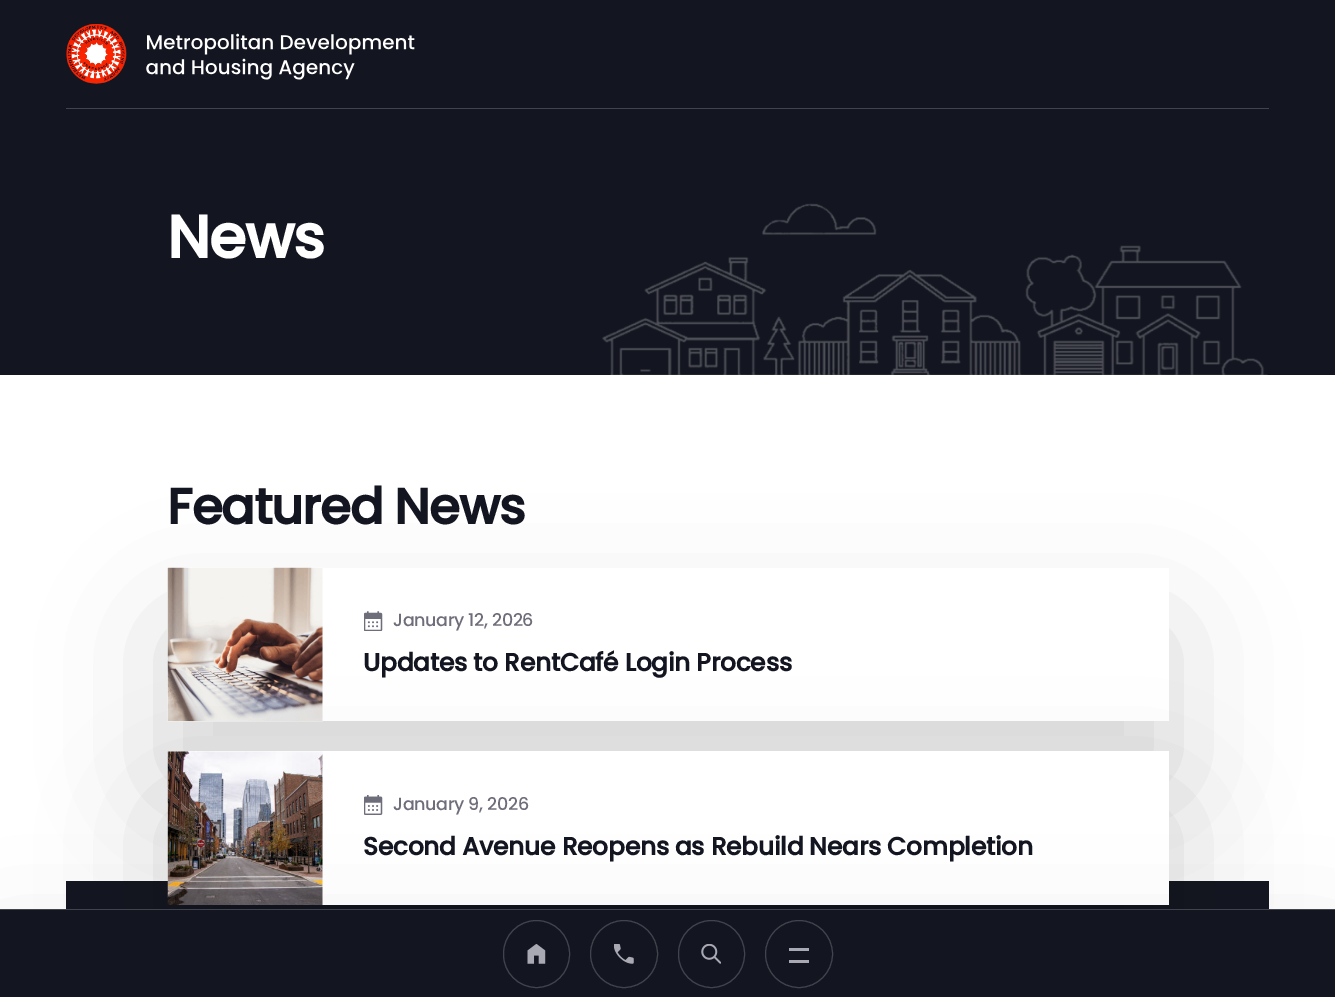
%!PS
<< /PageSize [1335 997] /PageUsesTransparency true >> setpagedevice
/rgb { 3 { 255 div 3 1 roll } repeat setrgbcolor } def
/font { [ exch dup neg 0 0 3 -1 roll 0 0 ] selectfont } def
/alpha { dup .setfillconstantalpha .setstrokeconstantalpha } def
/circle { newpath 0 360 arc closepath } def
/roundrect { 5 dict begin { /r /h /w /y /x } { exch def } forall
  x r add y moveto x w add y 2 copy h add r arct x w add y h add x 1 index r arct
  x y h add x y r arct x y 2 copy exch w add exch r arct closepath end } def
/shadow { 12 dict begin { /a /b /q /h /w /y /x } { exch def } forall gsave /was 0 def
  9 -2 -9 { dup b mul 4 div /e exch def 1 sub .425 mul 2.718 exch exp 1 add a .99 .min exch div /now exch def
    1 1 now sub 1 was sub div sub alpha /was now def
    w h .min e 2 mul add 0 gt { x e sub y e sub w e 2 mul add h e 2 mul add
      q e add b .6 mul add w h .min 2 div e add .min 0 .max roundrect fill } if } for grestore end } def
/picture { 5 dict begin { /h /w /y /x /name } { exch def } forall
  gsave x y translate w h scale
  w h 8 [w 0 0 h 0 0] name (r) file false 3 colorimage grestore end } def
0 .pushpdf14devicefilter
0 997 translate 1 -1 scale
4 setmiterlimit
255 255 255 rgb
0 0 1335 997 rectfill
19 21 32 rgb
0 0 1335 375 rectfill
66 68 77 rgb
66 108 1203 1 rectfill
(img_01.rgb) 66 24 349 60 picture
19 21 32 rgb
66 881 1203 28 rectfill
0 0 0 rgb
168 628 1001 153 0 60 0.15 shadow
255 255 255 rgb
322 568 847 153 rectfill
(img_06.rgb) 167 567 156 155 picture
(img_07.rgb) 364 611 19 20 picture
0 0 0 rgb
168 811 1001 154 0 60 0.15 shadow
255 255 255 rgb
168 751 1001 154 rectfill
(img_08.rgb) 167 751 156 154 picture
(img_09.rgb) 364 795 19 20 picture
0 0 0 rgb
0 969 1335 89 0 60 0.15 shadow
19 21 32 rgb
0 910 1335 87 rectfill
66 68 77 rgb
0 909 1335 1 rectfill
503.5 920.5 66 67 33 roundrect stroke
(img_02.rgb) 527 944 19 20 picture
624 954 33.5 circle stroke
(img_03.rgb) 614 944 20 20 picture
678.5 920.5 66 67 33 roundrect stroke
(img_04.rgb) 701 944 20 20 picture
799 954 33.5 circle stroke
169 169 180 rgb
789 948 20 3 rectfill
789 960 20 3 rectfill
(img_05.rgb) 602 203 666 172 picture
/Poppins-Bold 60 font
255 255 255 rgb
167 258 moveto -1.25 0 (News) ashow
/Poppins-Bold 50 font
19 21 32 rgb
167 524 moveto -1.25 0 (Featured News) ashow
/Poppins-Medium 17.5 font
110 109 122 rgb
393 626 moveto -0.3 0 (January 12, 2026) ashow
/Poppins-Bold 25 font
19 21 32 rgb
363 671 moveto -0.3 0 (Updates to RentCafé Login Process) ashow
/Poppins-Medium 17.5 font
110 109 122 rgb
393 810 moveto -0.3 0 (January 9, 2026) ashow
/Poppins-Bold 25 font
19 21 32 rgb
363 855 moveto -0.3 0 (Second Avenue Reopens as Rebuild Nears Completion) ashow
.poppdf14devicefilter showpage
